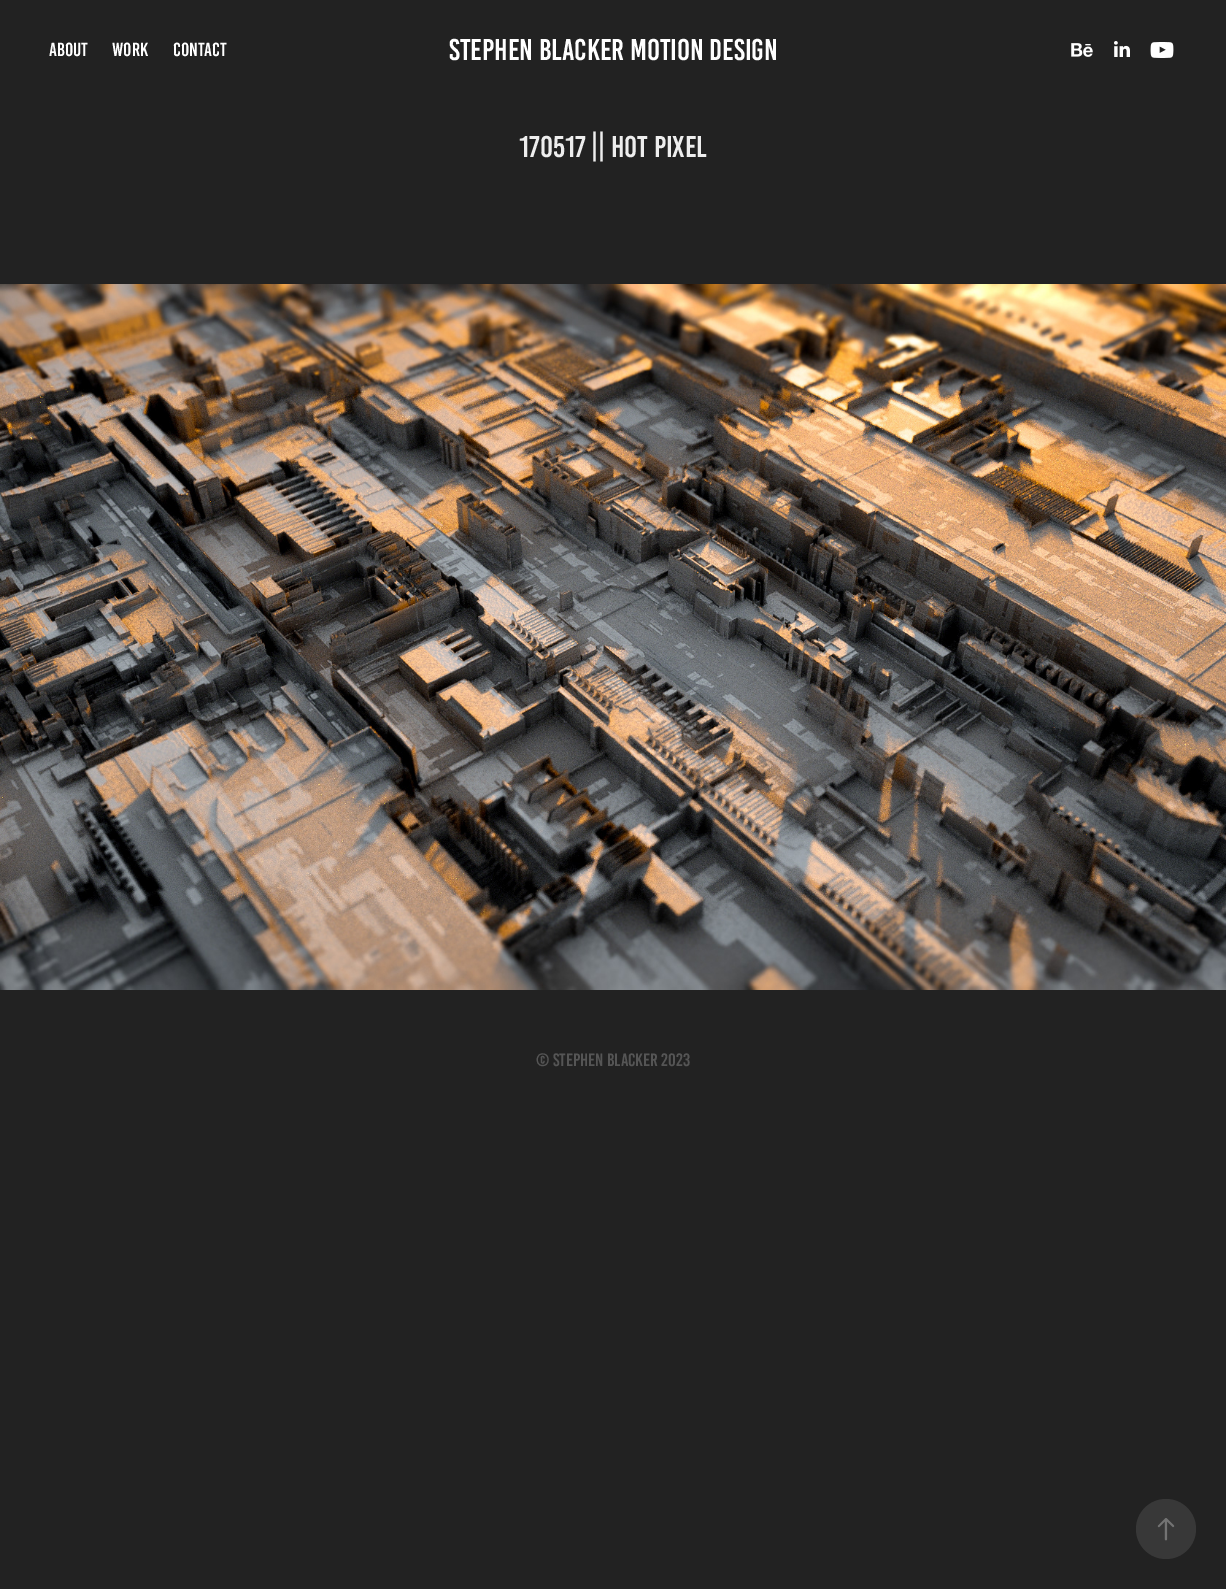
%!PS
<< /PageSize [1226 1589] >> setpagedevice
/rgb { 3 { 255 div 3 1 roll } repeat setrgbcolor } def
/font { [ exch dup neg 0 0 3 -1 roll 0 0 ] selectfont } def
/text { moveto show } def
/circle { newpath 0 360 arc closepath } def
/picture { 5 dict begin { /h /w /y /x /name } { exch def } forall
  gsave x y translate w h scale
  w h 8 [w 0 0 h 0 0] name (r) file false 3 colorimage grestore end } def
0 1589 translate 1 -1 scale
4 setmiterlimit
34 34 34 rgb
0 0 1226 1589 rectfill
(img_01.rgb) 1071 43 22 14 picture
(img_02.rgb) 1114 41 16 16 picture
(img_03.rgb) 1150 42 24 16 picture
(img_04.rgb) 0 284 1226 706 picture
56 56 56 rgb
1166 1529 30 circle fill
(img_05.rgb) 1157 1518 18 23 picture
/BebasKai-Regular 19 font
255 255 255 rgb
(ABOUT) 49 56 text
(WORK) 112 56 text
(CONTACT) 173 56 text
/BebasKai-Regular 30 font
(STEPHEN BLACKER MOTION DESIGN) 449 60 text
238 238 238 rgb
(170517 || HOT PIXEL) 519 157 text
/BebasKai-Regular 18 font
85 85 85 rgb
(© Stephen Blacker 2023) 536 1066 text
showpage
